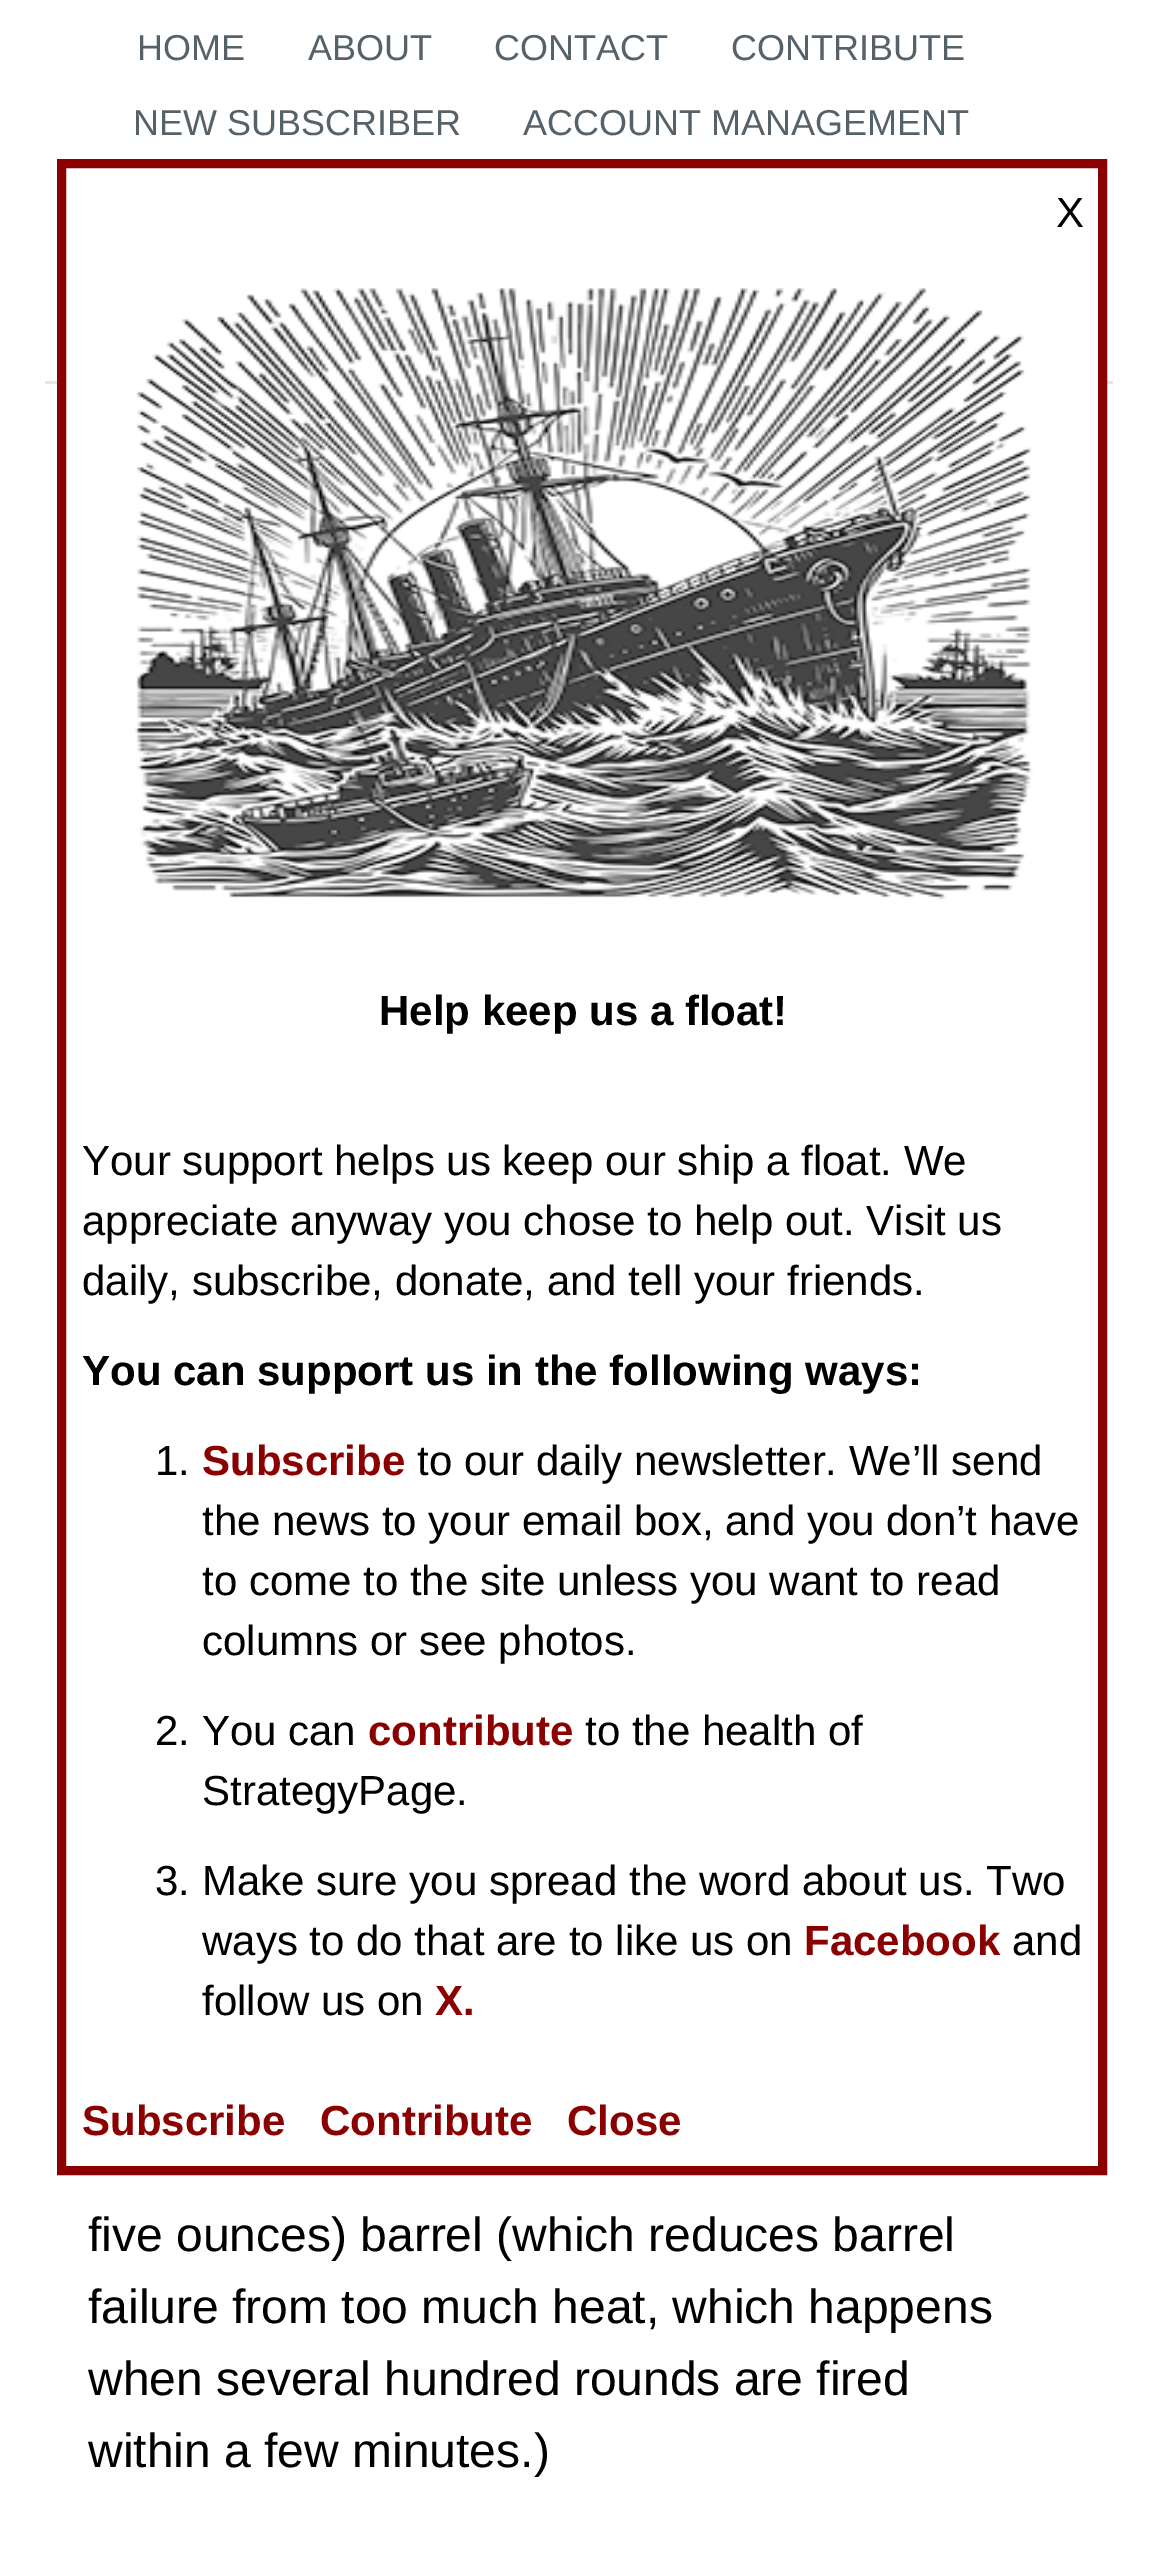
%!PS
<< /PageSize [1158 2557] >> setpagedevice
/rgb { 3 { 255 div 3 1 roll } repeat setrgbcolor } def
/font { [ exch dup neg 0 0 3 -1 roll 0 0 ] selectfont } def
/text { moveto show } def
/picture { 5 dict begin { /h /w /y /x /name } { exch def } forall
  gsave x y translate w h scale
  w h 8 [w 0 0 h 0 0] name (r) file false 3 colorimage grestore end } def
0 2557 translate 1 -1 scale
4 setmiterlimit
255 255 255 rgb
0 0 1158 2557 rectfill
230 230 230 rgb
45 381 1068 3 rectfill
255 255 255 rgb
66 381 1032 3 rectfill
139 0 0 rgb
9 setlinewidth
61.5 163.5 1041 2007 rectstroke
(img_01.rgb) 134 288 899 612 picture
/LiberationSans-Regular 36 font
85 98 105 rgb
(HOME) 137 60 text
(ABOUT) 308 60 text
(CONTACT) 494 60 text
(CONTRIBUTE) 731 60 text
(NEW SUBSCRIBER) 133 135 text
(ACCOUNT MANAGEMENT) 523 135 text
/LiberationSans-Regular 42 font
0 0 0 rgb
(X) 1056 227 text
/LiberationSans-Bold 42 font
(Help keep us a float!) 379 1025 text
/LiberationSans-Regular 42 font
(Your support helps us keep our ship a float. We) 82 1175 text
(appreciate anyway you chose to help out. Visit us) 82 1235 text
(daily, subscribe, donate, and tell your friends.) 82 1295 text
/LiberationSans-Bold 42 font
(You can support us in the following ways:) 82 1385 text
/LiberationSans-Regular 42 font
(1.) 155 1475 text
/LiberationSans-Bold 42 font
139 0 0 rgb
(Subscribe) 202 1475 text
/LiberationSans-Regular 42 font
0 0 0 rgb
(to our daily newsletter. We’ll send) 417 1475 text
(the news to your email box, and you don’t have) 202 1535 text
(to come to the site unless you want to read) 202 1595 text
(columns or see photos.) 202 1655 text
(2. You can) 155 1745 text
/LiberationSans-Bold 42 font
139 0 0 rgb
(contribute) 368 1745 text
/LiberationSans-Regular 42 font
0 0 0 rgb
(to the health of) 585 1745 text
(StrategyPage.) 202 1805 text
(3. Make sure you spread the word about us. Two) 155 1895 text
(ways to do that are to like us on) 202 1955 text
/LiberationSans-Bold 42 font
139 0 0 rgb
(Facebook) 804 1955 text
/LiberationSans-Regular 42 font
0 0 0 rgb
(and) 1012 1955 text
(follow us on) 202 2015 text
/LiberationSans-Bold 42 font
139 0 0 rgb
(X.) 435 2015 text
(Subscribe) 82 2135 text
(Contribute) 320 2135 text
(Close) 567 2135 text
/LiberationSans-Regular 48 font
0 0 0 rgb
(five ounces\) barrel \(which reduces barrel) 88 2251 text
(failure from too much heat, which happens) 88 2323 text
(when several hundred rounds are fired) 88 2395 text
(within a few minutes.\)) 88 2467 text
showpage
